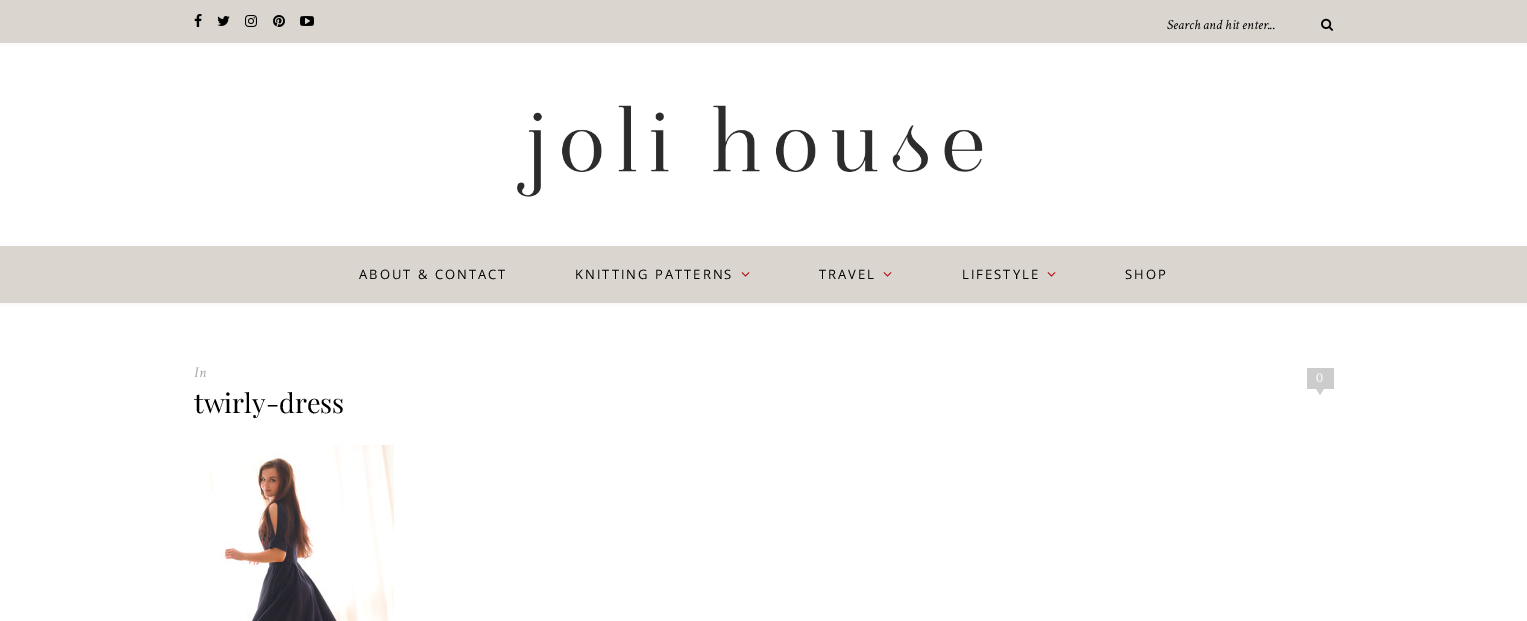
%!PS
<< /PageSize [1527 621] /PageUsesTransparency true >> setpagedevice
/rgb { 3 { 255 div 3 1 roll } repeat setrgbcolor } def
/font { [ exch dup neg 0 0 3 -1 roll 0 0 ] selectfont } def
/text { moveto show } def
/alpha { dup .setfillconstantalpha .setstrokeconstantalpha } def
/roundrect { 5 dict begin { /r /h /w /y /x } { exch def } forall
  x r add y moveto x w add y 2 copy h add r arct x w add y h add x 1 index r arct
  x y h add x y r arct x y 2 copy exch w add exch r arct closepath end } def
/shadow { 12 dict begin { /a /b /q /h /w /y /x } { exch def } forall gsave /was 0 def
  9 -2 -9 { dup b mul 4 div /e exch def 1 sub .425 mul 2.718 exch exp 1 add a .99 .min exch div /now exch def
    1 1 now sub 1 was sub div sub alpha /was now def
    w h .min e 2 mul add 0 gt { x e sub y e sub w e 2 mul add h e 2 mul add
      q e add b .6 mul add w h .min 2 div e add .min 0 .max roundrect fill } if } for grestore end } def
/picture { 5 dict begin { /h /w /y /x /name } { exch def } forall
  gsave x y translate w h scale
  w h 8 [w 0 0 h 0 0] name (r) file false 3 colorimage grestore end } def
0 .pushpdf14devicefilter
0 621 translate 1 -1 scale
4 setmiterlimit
255 255 255 rgb
0 0 1527 621 rectfill
190 190 190 rgb
0 1 1527 43 0 2.5 0.16 shadow
218 213 207 rgb
0 0 1527 43 rectfill
(img_01.rgb) 194 14 8 13 picture
(img_02.rgb) 217 16 13 10 picture
(img_03.rgb) 245 15 12 12 picture
(img_04.rgb) 273 15 12 12 picture
(img_05.rgb) 300 16 14 10 picture
(img_06.rgb) 1321 18 12 13 picture
(img_07.rgb) 517 105 466 92 picture
190 190 190 rgb
0 247 1527 57 0 2.5 0.16 shadow
218 213 207 rgb
0 246 1527 57 rectfill
(img_08.rgb) 741 272 9 5 picture
(img_08.rgb) 883 272 9 5 picture
(img_08.rgb) 1047 272 9 5 picture
204 204 204 rgb
1307 368 27 21 rectfill
1315 387 moveto 10 0 rlineto -5 8 rlineto closepath fill
(img_09.rgb) 209 445 185 176 picture
/CrimsonText-Italic 14 font
0 0 0 rgb
(Search and hit enter...) 1167 29 text
/OpenSans-Regular 13 font
359 279 moveto 2 0 (ABOUT & CONTACT) ashow
575 279 moveto 2 0 (KNITTING PATTERNS) ashow
819 279 moveto 2 0 (TRAVEL) ashow
962 279 moveto 2 0 (LIFESTYLE) ashow
1125 279 moveto 2 0 (SHOP) ashow
/CrimsonText-Italic 15 font
165 165 165 rgb
(In) 194 377 text
/CrimsonText-Regular 14 font
255 255 255 rgb
(0) 1316 382 text
/PlayfairDisplay-Regular 27 font
0 0 0 rgb
(twirly-dress) 194 413 text
.poppdf14devicefilter showpage
